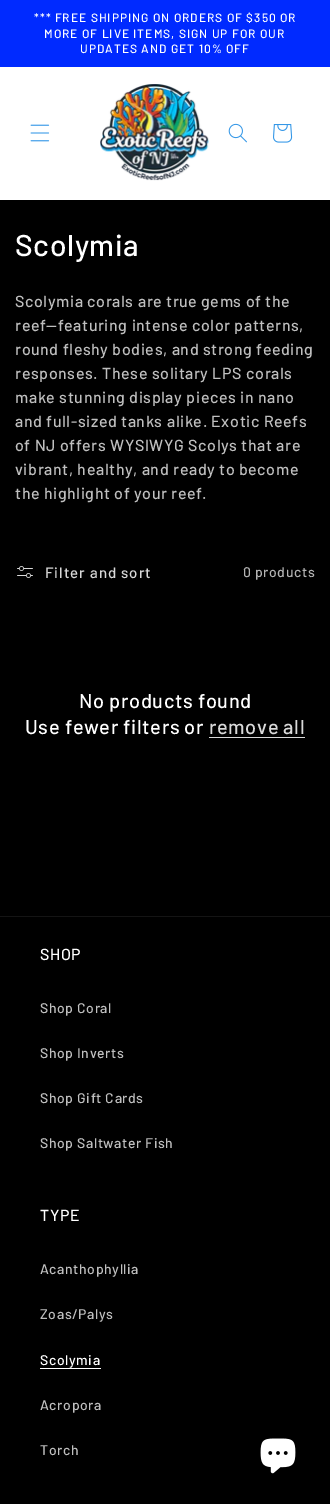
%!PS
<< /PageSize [330 1504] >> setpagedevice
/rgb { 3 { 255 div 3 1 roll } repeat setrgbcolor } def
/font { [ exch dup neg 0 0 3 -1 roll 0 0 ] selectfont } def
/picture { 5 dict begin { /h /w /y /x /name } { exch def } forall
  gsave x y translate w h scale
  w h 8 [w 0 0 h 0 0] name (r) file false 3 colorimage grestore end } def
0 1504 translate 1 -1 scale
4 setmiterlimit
0 0 0 rgb
0 0 330 1504 rectfill
0 42 255 rgb
0 0 330 67 rectfill
255 255 255 rgb
0 67 330 133 rectfill
(img_01.rgb) 30 124 20 18 picture
(img_02.rgb) 100 84 109 97 picture
(img_03.rgb) 228 123 19 20 picture
(img_04.rgb) 273 124 20 19 picture
(img_05.rgb) 17 566 16 12 picture
217 217 217 rgb
209 737 96 1 rectfill
20 20 20 rgb
0 916 330 1 rectfill
255 255 255 rgb
40 1368 61 1 rectfill
(img_06.rgb) 260 1438 36 36 picture
/Barlow-Medium 12 font
34 22 moveto 1 0 (*** FREE SHIPPING ON ORDERS OF $350 OR) ashow
44 38 moveto 1 0 (MORE OF LIVE ITEMS, SIGN UP FOR OUR) ashow
80 53 moveto 1 0 (UPDATES AND GET 10% OFF) ashow
/Barlow-Medium 30 font
15 256 moveto 0.6 0 (Scolymia) ashow
/Barlow-Medium 16 font
191 191 191 rgb
15 307 moveto 0.6 0 (Scolymia corals are true gems of the) ashow
15 331 moveto 0.6 0 (reef—featuring intense color patterns,) ashow
15 355 moveto 0.6 0 (round fleshy bodies, and strong feeding) ashow
15 379 moveto 0.6 0 (responses. These solitary LPS corals) ashow
15 403 moveto 0.6 0 (make stunning display pieces in nano) ashow
15 427 moveto 0.6 0 (and full-sized tanks alike. Exotic Reefs) ashow
15 451 moveto 0.6 0 (of NJ offers WYSIWYG Scolys that are) ashow
15 475 moveto 0.6 0 (vibrant, healthy, and ready to become) ashow
15 499 moveto 0.6 0 (the highlight of your reef.) ashow
/Barlow-Medium 15 font
217 217 217 rgb
45 578 moveto 1 0 (Filter and sort) ashow
/Barlow-Medium 14 font
179 179 179 rgb
243 577 moveto 0.6 0 (0 products) ashow
/Barlow-Medium 20 font
255 255 255 rgb
79 708 moveto 0.6 0 (No products found) ashow
25 734 moveto 0.6 0 (Use fewer filters or) ashow
217 217 217 rgb
209 734 moveto 0.6 0 (remove all) ashow
/Barlow-Medium 16 font
255 255 255 rgb
40 960 moveto 0.6 0 (SHOP) ashow
/Barlow-Medium 14 font
191 191 191 rgb
40 1013 moveto 0.6 0 (Shop Coral) ashow
40 1058 moveto 0.6 0 (Shop Inverts) ashow
40 1103 moveto 0.6 0 (Shop Gift Cards) ashow
40 1148 moveto 0.6 0 (Shop Saltwater Fish) ashow
/Barlow-Medium 16 font
255 255 255 rgb
40 1221 moveto 0.6 0 (TYPE) ashow
/Barlow-Medium 14 font
191 191 191 rgb
40 1274 moveto 0.6 0 (Acanthophyllia) ashow
40 1319 moveto 0.6 0 (Zoas/Palys) ashow
255 255 255 rgb
40 1365 moveto 0.6 0 (Scolymia) ashow
191 191 191 rgb
40 1410 moveto 0.6 0 (Acropora) ashow
40 1455 moveto 0.6 0 (Torch) ashow
showpage
